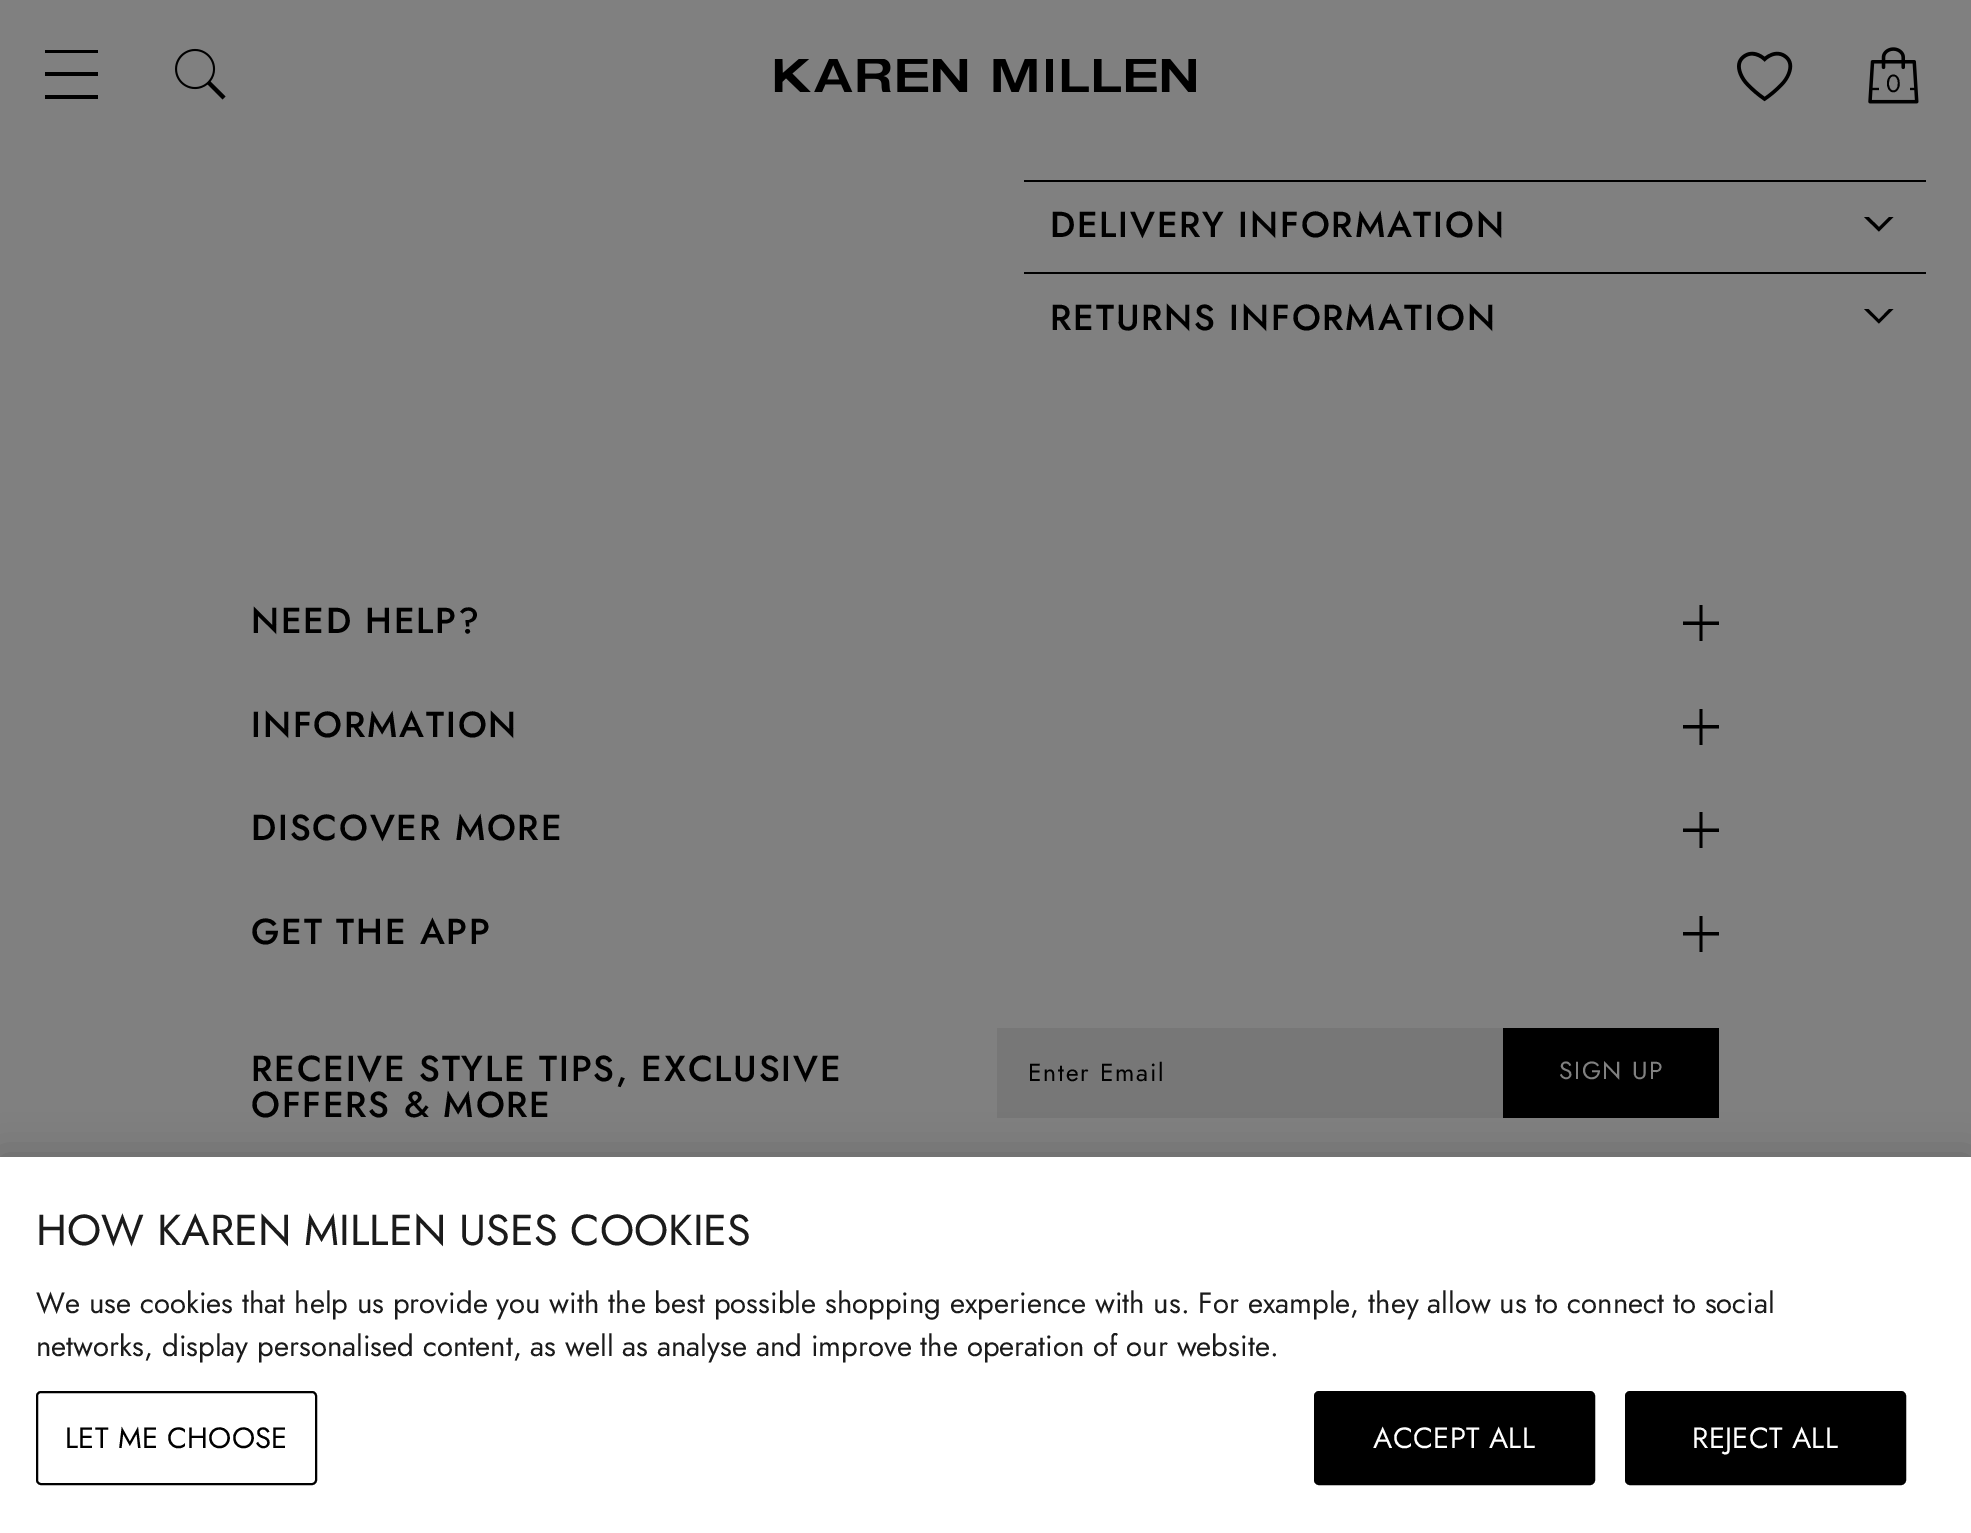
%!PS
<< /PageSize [1971 1533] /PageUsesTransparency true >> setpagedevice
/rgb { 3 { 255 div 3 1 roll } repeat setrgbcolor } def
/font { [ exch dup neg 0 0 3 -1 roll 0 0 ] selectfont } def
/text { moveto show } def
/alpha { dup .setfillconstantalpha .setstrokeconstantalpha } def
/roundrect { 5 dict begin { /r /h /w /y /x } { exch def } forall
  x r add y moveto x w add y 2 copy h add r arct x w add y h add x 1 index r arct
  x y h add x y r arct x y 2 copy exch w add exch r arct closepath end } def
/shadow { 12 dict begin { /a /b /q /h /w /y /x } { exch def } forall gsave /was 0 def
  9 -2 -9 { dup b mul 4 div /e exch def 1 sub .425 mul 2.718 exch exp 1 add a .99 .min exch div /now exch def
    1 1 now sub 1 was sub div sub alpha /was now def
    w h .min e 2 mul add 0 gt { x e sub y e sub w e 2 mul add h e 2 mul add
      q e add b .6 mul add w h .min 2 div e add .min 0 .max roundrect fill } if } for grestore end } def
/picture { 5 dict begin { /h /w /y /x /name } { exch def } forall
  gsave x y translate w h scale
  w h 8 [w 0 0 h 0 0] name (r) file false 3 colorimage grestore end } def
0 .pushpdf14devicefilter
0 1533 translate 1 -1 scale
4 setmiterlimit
128 128 128 rgb
0 0 1971 1533 rectfill
0 0 0 rgb
45 50 moveto 0 3 rlineto 53 0 rlineto 0 -3 rlineto closepath 45 76 moveto 53 0 rlineto 0 -4 rlineto -53 0 rlineto closepath 45 99 moveto 53 0 rlineto 0 -4 rlineto -53 0 rlineto closepath fill
(img_01.rgb) 175 48 51 52 picture
(img_02.rgb) 774 59 422 33 picture
(img_03.rgb) 1737 51 56 51 picture
(img_04.rgb) 1868 47 51 57 picture
128 128 128 rgb
1879 87 31 4 rectfill
0 0 0 rgb
1024 180 902 2 rectfill
1868.5 217 moveto 10.5 10 rlineto 10 -10 rlineto 4.5 0 rlineto -14.5 14.5 rlineto -15 -14.5 rlineto closepath fill
1024 272 902 2 rectfill
1868.5 309 moveto 10.5 10.5 rlineto 10 -10.5 rlineto 4.5 0 rlineto -14.5 14.5 rlineto -15 -14.5 rlineto closepath fill
1719 621.5 moveto -16.5 0 rlineto 0 -16.5 rlineto -3 0 rlineto 0 16.5 rlineto -16.5 0 rlineto 0 3.5 rlineto 16.5 0 rlineto 0 16 rlineto 3 0 rlineto 0 -16 rlineto 16.5 0 rlineto closepath fill
1719 725 moveto -16.5 0 rlineto 0 -16 rlineto -3 0 rlineto 0 16 rlineto -16.5 0 rlineto 0 3.5 rlineto 16.5 0 rlineto 0 16.5 rlineto 3 0 rlineto 0 -16.5 rlineto 16.5 0 rlineto closepath fill
1719 828.5 moveto -16.5 0 rlineto 0 -16.5 rlineto -3 0 rlineto 0 16.5 rlineto -16.5 0 rlineto 0 3.5 rlineto 16.5 0 rlineto 0 16 rlineto 3 0 rlineto 0 -16 rlineto 16.5 0 rlineto closepath fill
1719 932 moveto -16.5 0 rlineto 0 -16 rlineto -3 0 rlineto 0 16 rlineto -16.5 0 rlineto 0 3.5 rlineto 16.5 0 rlineto 0 16.5 rlineto 3 0 rlineto 0 -16.5 rlineto 16.5 0 rlineto closepath fill
119 119 119 rgb
997 1028 506 90 rectfill
0 0 0 rgb
1503 1028 216 90 rectfill
0 1157 1971 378 0 20 0.2 shadow
255 255 255 rgb
0 1157 1971 376 rectfill
0 0 0 rgb
2 setlinewidth
37 1392 279 92 4 roundrect stroke
1315 1392 279 92 4 roundrect gsave fill grestore
stroke
1626 1392 279 92 4 roundrect gsave fill grestore
stroke
/Jost-Regular 24.75 font
1886 92 moveto 1.8 0 (0) ashow
/Jost-Medium 36 font
1050 237 moveto 1.8 0 (DELIVERY INFORMATION) ashow
1050 330 moveto 1.8 0 (RETURNS INFORMATION) ashow
251 633 moveto 1.8 0 (NEED HELP?) ashow
251 737 moveto 1.8 0 (INFORMATION) ashow
251 840 moveto 1.8 0 (DISCOVER MORE) ashow
251 944 moveto 1.8 0 (GET THE APP) ashow
251 1081 moveto 1.8 0 (RECEIVE STYLE TIPS, EXCLUSIVE) ashow
251 1117 moveto 1.8 0 (OFFERS & MORE) ashow
/Jost-Regular 24.75 font
1028 1081 moveto 1.8 0 (Enter Email) ashow
128 128 128 rgb
1559 1079 moveto 1.5 0 (SIGN UP) ashow
/Jost-Regular 43.25 font
27 27 27 rgb
(HOW KAREN MILLEN USES COOKIES) 36 1245 text
/Jost-Regular 29.27 font
(We use cookies that help us provide you with the best possible shopping experience with us. For example, they allow us to connect to social) 36 1313 text
(networks, display personalised content, as well as analyse and improve the operation of our website.) 36 1356 text
0 0 0 rgb
65 1448 moveto 0.25 0 (LET ME CHOOSE) ashow
255 255 255 rgb
1373 1448 moveto 0.25 0 (ACCEPT ALL) ashow
1692 1448 moveto 0.25 0 (REJECT ALL) ashow
.poppdf14devicefilter showpage
